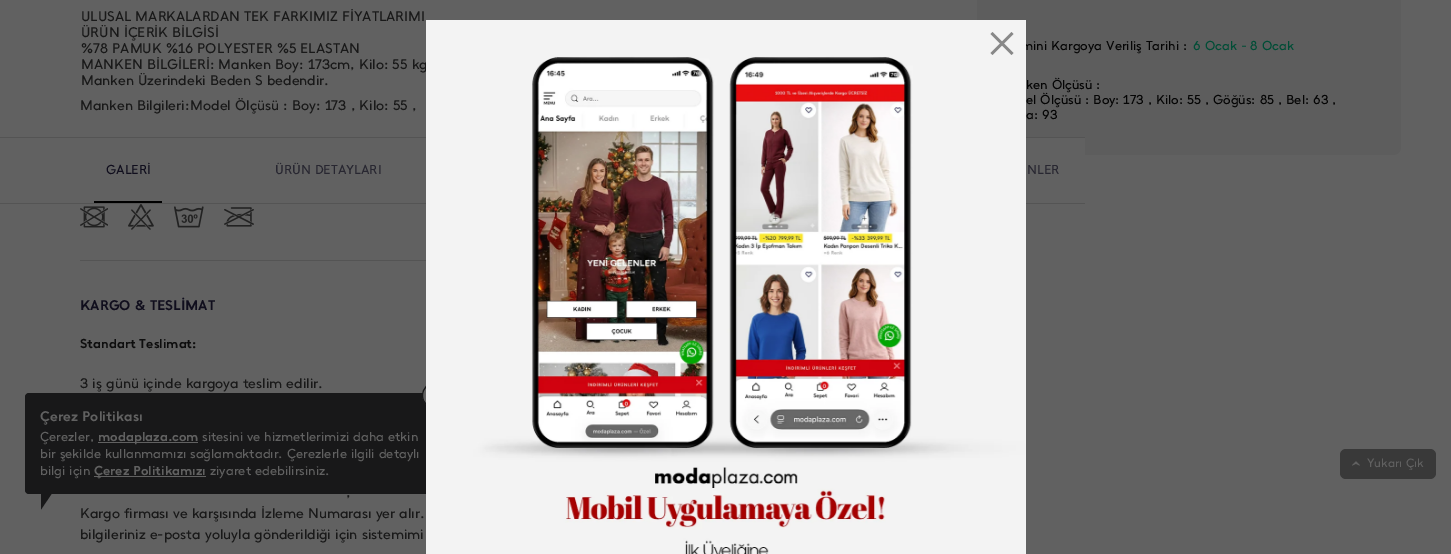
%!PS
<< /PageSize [1451 554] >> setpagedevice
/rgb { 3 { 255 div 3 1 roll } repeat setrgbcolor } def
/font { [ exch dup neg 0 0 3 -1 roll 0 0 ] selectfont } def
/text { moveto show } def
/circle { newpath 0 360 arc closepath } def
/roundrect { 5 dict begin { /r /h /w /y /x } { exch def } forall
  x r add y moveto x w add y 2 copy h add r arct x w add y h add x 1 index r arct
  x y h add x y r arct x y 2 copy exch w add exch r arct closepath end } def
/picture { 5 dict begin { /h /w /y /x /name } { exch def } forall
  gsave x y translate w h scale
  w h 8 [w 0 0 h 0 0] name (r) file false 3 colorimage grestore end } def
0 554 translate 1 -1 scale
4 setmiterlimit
97 97 97 rgb
0 0 1451 554 rectfill
84 84 84 rgb
80 260 346 1 rectfill
(img_01.rgb) 80 206 28 22 picture
(img_02.rgb) 128 204 26 26 picture
(img_03.rgb) 174 206 30 22 picture
(img_04.rgb) 224 207 30 20 picture
93 93 93 rgb
977 -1 moveto 424 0 rlineto 0 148 rlineto 0 4.5 -3.5 8 -8 8 rcurveto -408 0 rlineto -4.5 0 -8 -3.5 -8 -8 rcurveto closepath fill
97 97 97 rgb
977 138 108 17 rectfill
84 84 84 rgb
0 137 1085 1 rectfill
0 203 1085 1 rectfill
0 0 0 rgb
94 201 68 2 rectfill
24 24 25 rgb
25 393 420 101 4 roundrect fill
97 97 97 rgb
435.5 395.5 13 circle gsave fill grestore
24 24 25 rgb
stroke
97 97 97 rgb
98 442 100 1 rectfill
94 476 112 1 rectfill
24 24 25 rgb
41 494 moveto 0 15.5 rlineto 10.5 -15.5 rlineto closepath fill
57 57 57 rgb
1340 449 96 30 6 roundrect fill
(img_06.rgb) 1352 461 8 5 picture
/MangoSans-Regular 14 font
25 25 25 rgb
(ULUSAL MARKALARDAN TEK FARKIMIZ FİYATLARIMI) 81 21 text
(ÜRÜN İÇERİK BİLGİSİ) 81 37 text
(%78 PAMUK %16 POLYESTER %5 ELASTAN) 81 53 text
(MANKEN BİLGİLERİ: Manken Boy: 173cm, Kilo: 55 kg) 81 69 text
(Manken Üzerindeki Beden S bedendir.) 81 85 text
(Manken Bilgileri:) 80 110 text
(Model Ölçüsü : Boy: 173 , Kilo: 55 ,) 190 110 text
/MangoSans-Bold 14 font
16 14 29 rgb
(KARGO & TESLİMAT) 80 310 text
/MangoSans-Bold 13 font
14 14 14 rgb
(Standart Teslimat:) 80 348 text
/MangoSans-Regular 14 font
25 25 25 rgb
(3 iş günü içinde kargoya teslim edilir.) 80 388 text
(,) 346 497 text
(Kargo firması ve karşısında İzleme Numarası yer alır.) 80 518 text
(bilgileriniz e-posta yoluyla gönderildiği için sistemimi) 80 539 text
/MangoSans-Regular 13 font
16 14 29 rgb
(GALERİ) 106 174 text
40 39 49 rgb
(ÜRÜN DETAYLARI) 275 174 text
(NLER) 1027 174 text
5 5 5 rgb
(mini Kargoya Veriliş Tarihi :) 1021 50 text
0 77 54 rgb
(6 Ocak - 8 Ocak) 1193 50 text
5 5 5 rgb
(ken Ölçüsü :) 1026 89 text
(el Ölçüsü : Boy: 173 , Kilo: 55 , Göğüs: 85 , Bel: 63 ,) 1026 104 text
(a: 93) 1026 119 text
/MangoSans-Bold 14 font
97 97 97 rgb
(Çerez Politikası) 40 421 text
/MangoSans-Regular 13 font
(Çerezler,) 40 441 text
/MangoSans-Bold 13 font
(modaplaza.com) 98 441 text
/MangoSans-Regular 13 font
(sitesini ve hizmetlerimizi daha etkin) 202 441 text
(bir şekilde kullanmamızı sağlamaktadır. Çerezlerle ilgili detaylı) 40 458 text
(bilgi için) 40 475 text
/MangoSans-Bold 13 font
(Çerez Politikamızı) 94 475 text
/MangoSans-Regular 13 font
(ziyaret edebilirsiniz.) 210 475 text
(img_05.rgb) 426 20 600 534 picture
136 136 136 rgb
992.5 32 moveto 21 21 rlineto -2 2 rlineto -21 -21 rlineto closepath fill
990.5 53 moveto 21 -21 rlineto 2 2 rlineto -21 21 rlineto closepath fill
/MangoSans-Regular 12 font
97 97 97 rgb
(Yukarı Çık) 1367 467 text
showpage
